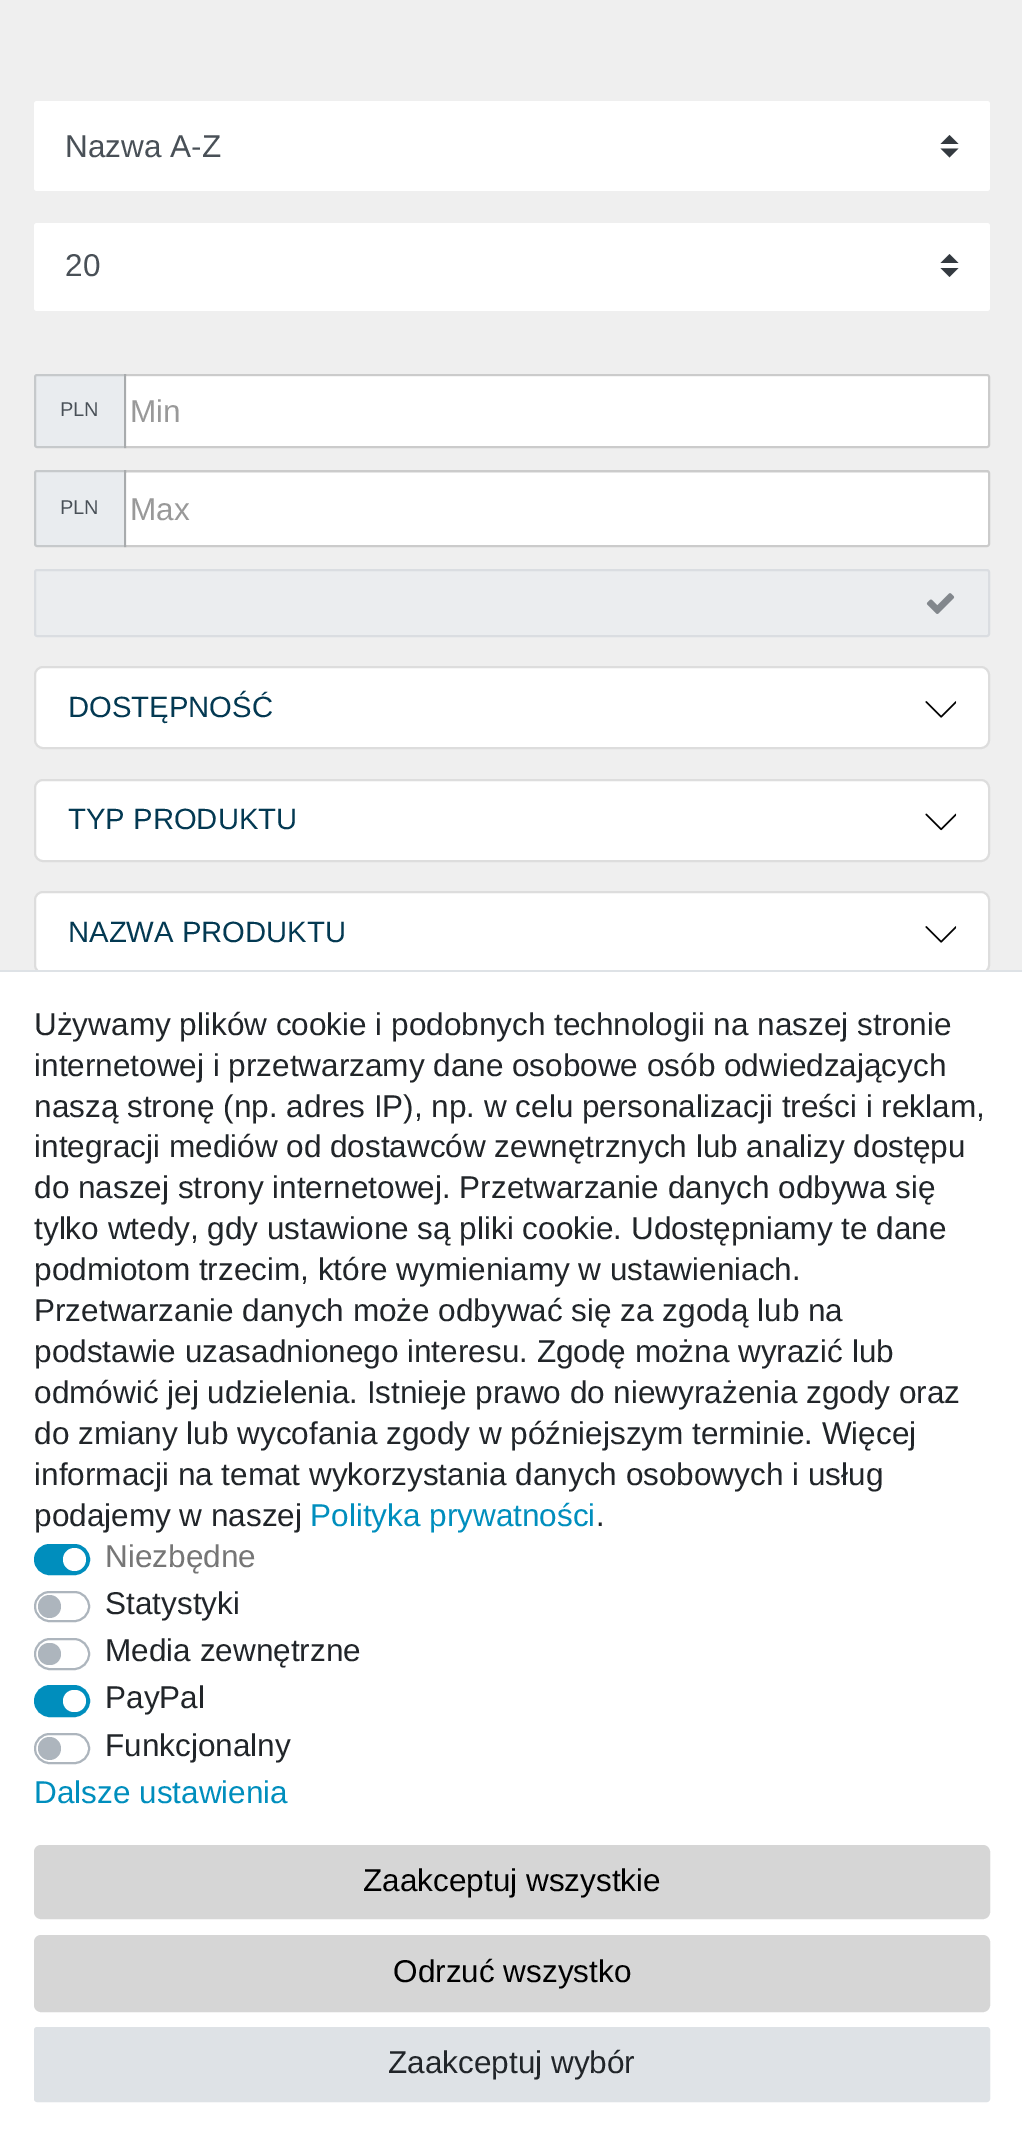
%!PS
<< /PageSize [1022 2148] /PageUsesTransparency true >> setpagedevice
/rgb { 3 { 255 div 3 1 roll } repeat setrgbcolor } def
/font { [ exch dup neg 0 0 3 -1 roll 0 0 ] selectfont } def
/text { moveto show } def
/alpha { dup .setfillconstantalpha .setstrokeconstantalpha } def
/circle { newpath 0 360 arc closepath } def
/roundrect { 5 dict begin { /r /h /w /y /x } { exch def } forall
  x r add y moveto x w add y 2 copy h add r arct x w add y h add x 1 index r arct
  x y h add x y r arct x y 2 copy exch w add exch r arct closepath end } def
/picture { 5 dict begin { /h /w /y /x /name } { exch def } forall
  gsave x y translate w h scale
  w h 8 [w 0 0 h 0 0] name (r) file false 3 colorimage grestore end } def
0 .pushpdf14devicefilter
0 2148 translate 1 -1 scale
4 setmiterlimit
239 239 239 rgb
0 0 1022 2148 rectfill
255 255 255 rgb
34 101 956 90 3 roundrect fill
52 58 64 rgb
949.5 135 moveto -9 9 rlineto 18 0 rlineto closepath 949.5 157.5 moveto -9 -9 rlineto 18 0 rlineto closepath fill
255 255 255 rgb
34 223 956 88 3 roundrect fill
52 58 64 rgb
949.5 254 moveto -9 9 rlineto 18 0 rlineto closepath 949.5 277 moveto -9 -9 rlineto 18 0 rlineto closepath fill
233 236 239 rgb
37 374 moveto 89 0 rlineto 0 74 rlineto -89 0 rlineto -1.5 0 -3 -1.5 -3 -3 rcurveto 0 -68 rlineto 0 -1.5 1.5 -3 3 -3 rcurveto closepath fill
0.15 alpha
0 0 0 rgb
2 setlinewidth
37 375 moveto 88 0 rlineto 0 72 rlineto -88 0 rlineto -1 0 -2 -1 -2 -2 rcurveto 0 -68 rlineto 0 -1 1 -2 2 -2 rcurveto closepath stroke
1 alpha
255 255 255 rgb
126 376 moveto 861 0 rlineto 0.5 0 1 0.5 1 1 rcurveto 0 68 rlineto 0 0.5 -0.5 1 -1 1 rcurveto -861 0 rlineto closepath fill
0.15 alpha
0 0 0 rgb
125 375 moveto 862 0 rlineto 1 0 2 1 2 2 rcurveto 0 68 rlineto 0 1 -1 2 -2 2 rcurveto -862 0 rlineto closepath stroke
1 alpha
233 236 239 rgb
37 470 moveto 89 0 rlineto 0 77 rlineto -89 0 rlineto -1.5 0 -3 -1.5 -3 -3 rcurveto 0 -71 rlineto 0 -1.5 1.5 -3 3 -3 rcurveto closepath fill
0.15 alpha
0 0 0 rgb
37 471 moveto 88 0 rlineto 0 75 rlineto -88 0 rlineto -1 0 -2 -1 -2 -2 rcurveto 0 -71 rlineto 0 -1 1 -2 2 -2 rcurveto closepath stroke
1 alpha
255 255 255 rgb
126 473 moveto 861 0 rlineto 0.5 0 1 0.5 1 1 rcurveto 0 70 rlineto 0 0.5 -0.5 1 -1 1 rcurveto -861 0 rlineto closepath fill
0.15 alpha
0 0 0 rgb
125 471 moveto 862 0 rlineto 1 0 2 1 2 2 rcurveto 0 71 rlineto 0 1 -1 2 -2 2 rcurveto -862 0 rlineto closepath stroke
1 alpha
235 237 239 rgb
35 570 954 66 2 roundrect gsave fill grestore
218 221 225 rgb
stroke
(img_01.rgb) 926 593 29 21 picture
255 255 255 rgb
35 667 954 81 8 roundrect gsave fill grestore
221 221 221 rgb
stroke
(img_02.rgb) 925 701 32 17 picture
255 255 255 rgb
35 780 954 81 8 roundrect gsave fill grestore
221 221 221 rgb
stroke
(img_03.rgb) 925 813 32 18 picture
255 255 255 rgb
35 892 954 81 8 roundrect gsave fill grestore
221 221 221 rgb
stroke
(img_02.rgb) 925 926 32 17 picture
255 255 255 rgb
0 972 1022 1176 rectfill
222 226 230 rgb
0 970 1022 2 rectfill
0 142 189 rgb
35 1545 54 29 14.5 roundrect gsave fill grestore
stroke
255 255 255 rgb
74.5 1559.5 11.5 circle fill
173 181 189 rgb
35 1592 54 29 14.5 roundrect stroke
49.5 1606.5 11.5 circle fill
35 1639 54 30 15 roundrect stroke
38 1643 23 22 11 roundrect fill
0 142 189 rgb
35 1686 54 30 15 roundrect gsave fill grestore
stroke
255 255 255 rgb
63 1690 23 22 11 roundrect fill
173 181 189 rgb
35 1734 54 29 14.5 roundrect stroke
49.5 1748.5 11.5 circle fill
214 214 214 rgb
35 1846 954 72 6 roundrect gsave fill grestore
stroke
35 1936 954 75 6 roundrect gsave fill grestore
stroke
222 226 230 rgb
35 2028 954 73 2 roundrect gsave fill grestore
stroke
/LiberationSans-Regular 31.5 font
73 80 87 rgb
(Nazwa A-Z) 65 157 text
(20) 65 276 text
/LiberationSans-Regular 20 font
(PLN) 60 416 text
/LiberationSans-Regular 31.5 font
153 153 153 rgb
(Min) 130 422 text
/LiberationSans-Regular 20 font
73 80 87 rgb
(PLN) 60 514 text
/LiberationSans-Regular 31.5 font
153 153 153 rgb
(Max) 130 520 text
/LiberationSans-Regular 29.25 font
3 57 82 rgb
(DOSTĘPNOŚĆ) 68 717 text
(TYP PRODUKTU) 68 829 text
(NAZWA PRODUKTU) 68 942 text
/LiberationSans-Regular 31.5 font
33 37 41 rgb
(Używamy plików cookie i podobnych technologii na naszej stronie) 34 1035 text
(internetowej i przetwarzamy dane osobowe osób odwiedzających) 34 1076 text
(naszą stronę \(np. adres IP\), np. w celu personalizacji treści i reklam,) 34 1117 text
(integracji mediów od dostawców zewnętrznych lub analizy dostępu) 34 1157 text
(do naszej strony internetowej. Przetwarzanie danych odbywa się) 34 1198 text
(tylko wtedy, gdy ustawione są pliki cookie. Udostępniamy te dane) 34 1239 text
(podmiotom trzecim, które wymieniamy w ustawieniach.) 34 1280 text
(Przetwarzanie danych może odbywać się za zgodą lub na) 34 1321 text
(podstawie uzasadnionego interesu. Zgodę można wyrazić lub) 34 1362 text
(odmówić jej udzielenia. Istnieje prawo do niewyrażenia zgody oraz) 34 1403 text
(do zmiany lub wycofania zgody w późniejszym terminie. Więcej) 34 1444 text
(informacji na temat wykorzystania danych osobowych i usług) 34 1485 text
(podajemy w naszej) 34 1526 text
0 142 189 rgb
(Polityka prywatności) 310 1526 text
33 37 41 rgb
(.) 596 1526 text
118 118 118 rgb
(Niezbędne) 105 1567 text
33 37 41 rgb
(Statystyki) 105 1614 text
(Media zewnętrzne) 105 1661 text
(PayPal) 105 1708 text
(Funkcjonalny) 105 1756 text
0 142 189 rgb
(Dalsze ustawienia) 34 1803 text
0 0 0 rgb
(Zaakceptuj wszystkie) 363 1891 text
(Odrzuć wszystko) 393 1982 text
33 37 41 rgb
(Zaakceptuj wybór) 388 2073 text
.poppdf14devicefilter showpage
